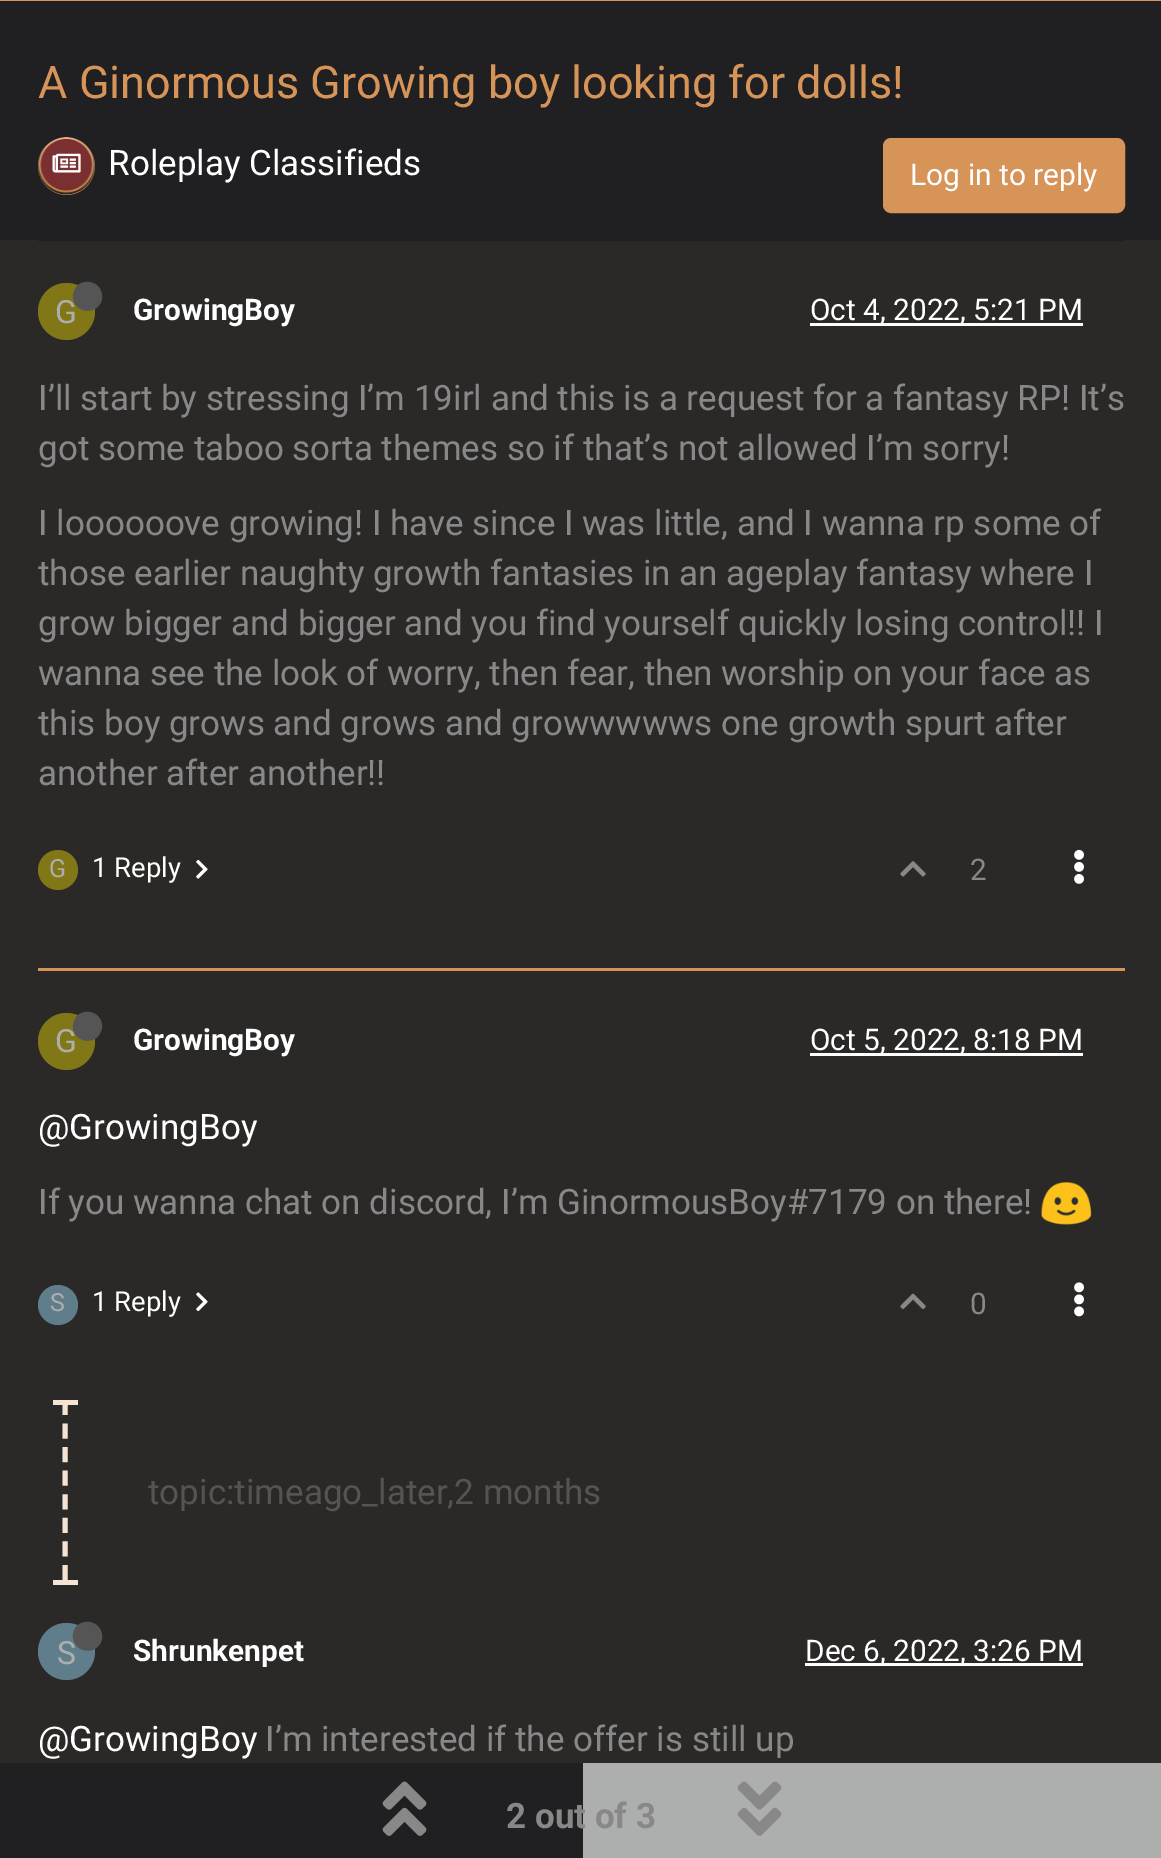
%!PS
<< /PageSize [1161 1858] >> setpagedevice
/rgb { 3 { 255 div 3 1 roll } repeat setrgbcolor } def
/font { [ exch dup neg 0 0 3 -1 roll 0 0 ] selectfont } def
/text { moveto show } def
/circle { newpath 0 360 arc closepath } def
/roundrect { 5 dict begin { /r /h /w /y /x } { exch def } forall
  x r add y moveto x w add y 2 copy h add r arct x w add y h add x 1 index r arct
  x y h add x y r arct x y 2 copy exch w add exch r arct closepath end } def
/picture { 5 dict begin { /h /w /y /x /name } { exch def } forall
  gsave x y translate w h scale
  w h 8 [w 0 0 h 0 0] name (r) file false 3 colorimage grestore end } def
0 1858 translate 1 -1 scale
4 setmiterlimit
43 41 39 rgb
0 0 1161 1858 rectfill
215 148 89 rgb
0 0 1161 1 rectfill
32 32 35 rgb
0 1 1161 239 rectfill
38 240 1087 1 rectfill
215 148 89 rgb
66.5 166.5 28.5 circle fill
(img_01.rgb) 37 137 58 58 picture
(img_02.rgb) 52 153 29 20 picture
884.5 139.5 239 72 6.5 roundrect gsave fill grestore
3 setlinewidth
stroke
38 968 1087 3 rectfill
130 119 23 rgb
66.5 311.5 28.5 circle fill
255 255 255 rgb
810 323 273 3 rectfill
130 119 23 rgb
58 870 20 circle fill
(img_03.rgb) 196 859 12 20 picture
(img_04.rgb) 900 861 26 16 picture
(img_05.rgb) 1074 849 10 35 picture
66.5 1041.5 28.5 circle fill
255 255 255 rgb
810 1053 273 3 rectfill
(img_06.rgb) 1041 1182 51 43 picture
96 125 139 rgb
58 1305 20 circle fill
(img_07.rgb) 196 1292 12 20 picture
(img_08.rgb) 900 1293 26 16 picture
(img_09.rgb) 1074 1282 10 35 picture
245 227 212 rgb
5 setlinewidth
[15 8.58] 0 setdash
65 1400 moveto 0 180 rlineto stroke
53 1400 25 5 rectfill
53 1580 25 5 rectfill
96 125 139 rgb
66.5 1651.5 28.5 circle fill
255 255 255 rgb
805 1663 278 3 rectfill
173 175 174 rgb
583 1763 578 95 rectfill
32 32 35 rgb
0 1763 583 95 rectfill
(img_10.rgb) 382 1781 45 55 picture
(img_11.rgb) 737 1781 45 55 picture
/Roboto-Regular 45 font
215 148 89 rgb
(A Ginormous Growing boy looking for dolls!) 38 98 text
/Roboto-Regular 35 font
255 255 255 rgb
(Roleplay Classifieds) 108 175 text
/Roboto-Regular 30 font
(Log in to reply) 910 185 text
/Roboto-Regular 32 font
173 175 174 rgb
(G) 55 323 text
85 85 85 rgb
77 286 moveto 2.5 -2.5 5.5 -4 9 -4 rcurveto 13.5 -1.5 21.5 15 12 24.5 rcurveto -10 9.5 -26 2 -25 -11.5 rcurveto 0.5 -3.5 2 -6.5 4 -9 rcurveto closepath fill
/Roboto-Bold 29.75 font
255 255 255 rgb
(GrowingBoy) 133 320 text
/Roboto-Regular 29.75 font
(Oct 4, 2022, 5:21 PM) 810 320 text
/Roboto-Regular 35 font
136 136 136 rgb
(I’ll start by stressing I’m 19irl and this is a request for a fantasy RP! It’s) 38 410 text
(got some taboo sorta themes so if that’s not allowed I’m sorry!) 38 460 text
(I loooooove growing! I have since I was little, and I wanna rp some of) 38 535 text
gsave
38 373 1087 452 rectclip
(those earlier naughty growth fantasies in an ageplay fantasy where I) 38 585 text
grestore
(grow bigger and bigger and you find yourself quickly losing control!! I) 38 635 text
(wanna see the look of worry, then fear, then worship on your face as) 38 685 text
gsave
38 373 1087 452 rectclip
(this boy grows and grows and growwwwws one growth spurt after) 38 735 text
grestore
(another after another!!) 38 785 text
/Roboto-Regular 25 font
173 175 174 rgb
(G) 49 877 text
/Roboto-Regular 27.5 font
255 255 255 rgb
(1 Reply) 92 877 text
/Roboto-Regular 29.75 font
136 136 136 rgb
(2) 970 880 text
/Roboto-Regular 32 font
173 175 174 rgb
(G) 55 1052 text
85 85 85 rgb
77 1016 moveto 10 -9.5 26 -2 25 11.5 rcurveto -0.5 3.5 -2 6.5 -4 9 rcurveto -10 9.5 -26 2 -25 -11.5 rcurveto 0.5 -3.5 2 -6.5 4 -9 rcurveto closepath fill
/Roboto-Bold 29.75 font
255 255 255 rgb
(GrowingBoy) 133 1050 text
/Roboto-Regular 29.75 font
(Oct 5, 2022, 8:18 PM) 810 1050 text
/Roboto-Regular 35 font
(@GrowingBoy) 38 1139 text
136 136 136 rgb
(If you wanna chat on discord, I’m GinormousBoy#7179 on there!) 38 1214 text
/Roboto-Regular 25 font
173 175 174 rgb
(S) 50 1311 text
/Roboto-Regular 27.5 font
255 255 255 rgb
(1 Reply) 92 1311 text
/Roboto-Regular 29.75 font
136 136 136 rgb
(0) 970 1314 text
/Roboto-Regular 35 font
85 84 83 rgb
(topic:timeago_later,2 months) 148 1504 text
/Roboto-Regular 32 font
173 175 174 rgb
(S) 57 1664 text
85 85 85 rgb
77 1626 moveto 2.5 -2.5 5.5 -4 9 -4 rcurveto 13.5 -1.5 21.5 15 12 24.5 rcurveto -2.5 2.5 -5.5 4 -9 4 rcurveto -13.5 1.5 -21.5 -15 -12 -24.5 rcurveto closepath fill
/Roboto-Bold 29.75 font
255 255 255 rgb
(Shrunkenpet) 133 1661 text
/Roboto-Regular 29.75 font
(Dec 6, 2022, 3:26 PM) 805 1661 text
/Roboto-Regular 35 font
(@GrowingBoy) 38 1751 text
136 136 136 rgb
(I’m interested if the offer is still up) 265 1751 text
/Roboto-Bold 35 font
(2 out of 3) 506 1828 text
showpage
